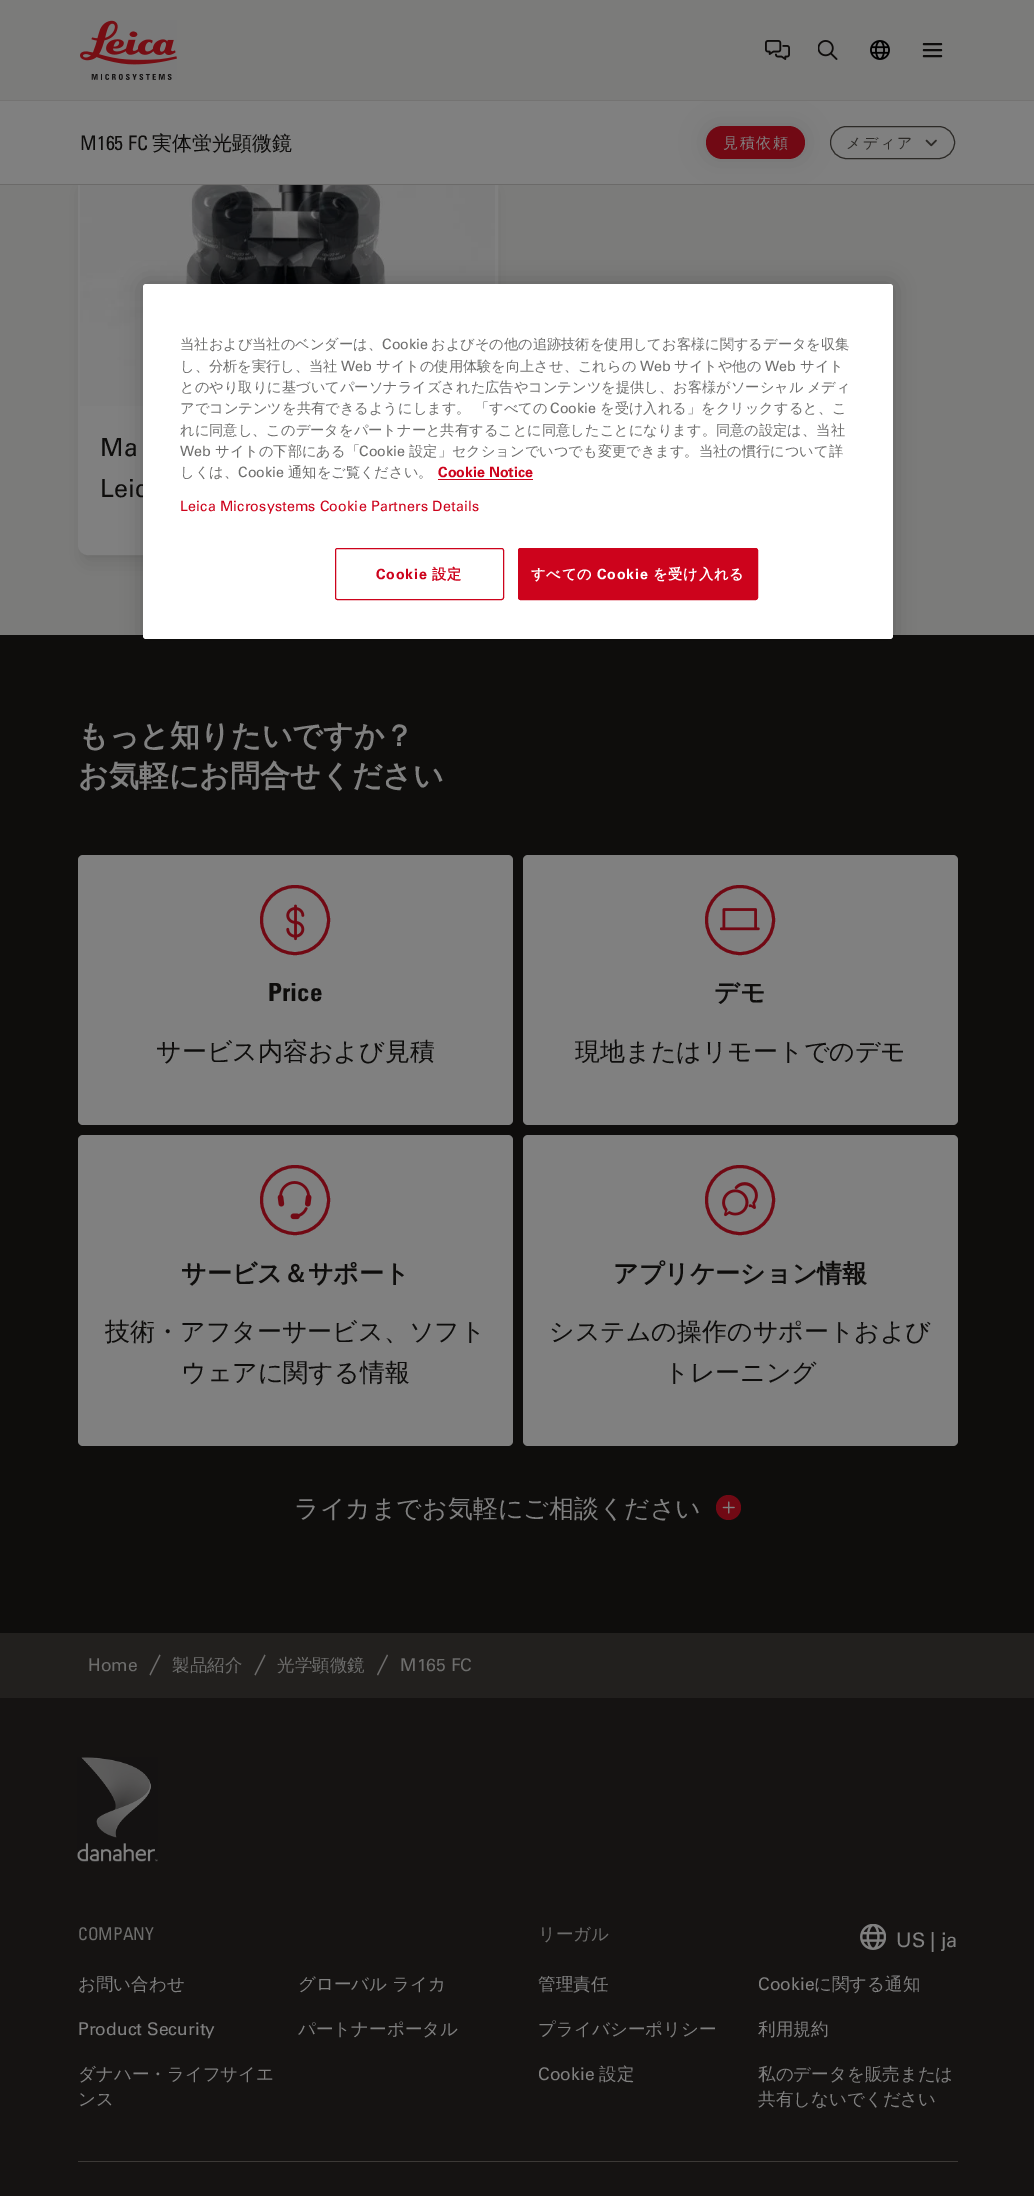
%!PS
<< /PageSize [1034 2196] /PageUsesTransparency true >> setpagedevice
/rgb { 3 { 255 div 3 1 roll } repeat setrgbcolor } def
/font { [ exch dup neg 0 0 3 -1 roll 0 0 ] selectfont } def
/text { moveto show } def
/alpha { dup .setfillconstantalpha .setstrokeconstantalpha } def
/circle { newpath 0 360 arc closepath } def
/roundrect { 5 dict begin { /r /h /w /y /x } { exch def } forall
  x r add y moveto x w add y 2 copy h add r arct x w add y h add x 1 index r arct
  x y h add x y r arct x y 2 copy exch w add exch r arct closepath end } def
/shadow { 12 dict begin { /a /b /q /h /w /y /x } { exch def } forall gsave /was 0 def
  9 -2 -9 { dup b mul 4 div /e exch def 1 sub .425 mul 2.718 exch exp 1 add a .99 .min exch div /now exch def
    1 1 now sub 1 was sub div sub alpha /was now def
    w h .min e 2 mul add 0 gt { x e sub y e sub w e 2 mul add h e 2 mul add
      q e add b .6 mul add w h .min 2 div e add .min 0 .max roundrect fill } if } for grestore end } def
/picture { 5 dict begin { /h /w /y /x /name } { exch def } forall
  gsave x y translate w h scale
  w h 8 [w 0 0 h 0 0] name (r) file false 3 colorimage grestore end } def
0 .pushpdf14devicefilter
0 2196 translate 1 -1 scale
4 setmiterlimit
34 32 30 rgb
0 0 1034 2196 rectfill
123 123 122 rgb
0 185 1034 450 rectfill
0 0 0 rgb
83 180 410 375 5 4 0.1 shadow
81 186 413 378 6 9.5 0.1 shadow
128 128 128 rgb
79.5 171.5 417 382 8.5 roundrect gsave fill grestore
3 setlinewidth
stroke
0 101 1034 83 rectfill
107 106 105 rgb
0 184 1034 1 rectfill
0 0 0 rgb
706 126 99 33 16.5 12.5 0.1 shadow
123 123 122 rgb
0 0 1034 100 rectfill
116 115 114 rgb
0 100 1034 1 rectfill
(img_01.rgb) 80 20 97 60 picture
(img_02.rgb) 765 40 25 20 picture
(img_03.rgb) 818 40 20 20 picture
(img_04.rgb) 870 40 20 20 picture
14 13 12 rgb
2.1 setlinewidth
1 setlinecap
1 setlinejoin
924 44 moveto 17 0 rlineto 924 50 moveto 17 0 rlineto 924 56 moveto 17 0 rlineto stroke
113 9 20 rgb
706 126 99 33 16.5 roundrect fill
44 42 39 rgb
1 setlinewidth
0 setlinecap
0 setlinejoin
830.5 126.5 124 32 16 roundrect stroke
(img_05.rgb) 925 139 12 8 picture
(img_06.rgb) 80 185 415 222 picture
14 13 12 rgb
0 635 1034 998 rectfill
128 128 128 rgb
78 855 435 270 5 roundrect fill
113 9 20 rgb
3 setlinewidth
295 920 33.5 circle stroke
(img_07.rgb) 286 904 19 37 picture
128 128 128 rgb
523 855 435 270 5 roundrect fill
113 9 20 rgb
740 920 33.5 circle stroke
(img_08.rgb) 720 908 40 23 picture
128 128 128 rgb
78 1135 435 311 5 roundrect fill
113 9 20 rgb
295 1200 33.5 circle stroke
(img_09.rgb) 277 1181 35 39 picture
128 128 128 rgb
523 1135 435 311 5 roundrect fill
113 9 20 rgb
740 1200 33.5 circle stroke
(img_10.rgb) 722 1182 36 35 picture
728.5 1507.5 12.5 circle fill
(img_11.rgb) 722 1501 13 13 picture
0 0 0 rgb
143 284 750 355 3 11 0.2 shadow
107 106 105 rgb
149.5 1674.5 moveto 10 -20 rlineto 1 1 rlineto -10 20 rlineto closepath fill
254.5 1674.5 moveto 10 -20 rlineto 1 1 rlineto -10 20 rlineto closepath fill
377 1674.5 moveto 10 -20 rlineto 1 1 rlineto -10 20 rlineto closepath fill
21 19 18 rgb
0 1698 1034 498 rectfill
(img_12.rgb) 77 1757 81 105 picture
(img_13.rgb) 860 1924 26 26 picture
60 57 54 rgb
78 2161 880 1 rectfill
/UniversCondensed-Regular 20 font
14 13 12 rgb
(M165 FC) 80 150 text
/WenQuanYiZenHei-Medium 20 font
(実体蛍光顕微鏡) 152 150 text
/WenQuanYiZenHei-Medium 15 font
128 128 128 rgb
723 148 moveto 1.5 0 (見積依頼) ashow
44 42 39 rgb
846 148 moveto 1.5 0 (メディア) ashow
/Univers-Regular 25 font
14 13 12 rgb
(Ma) 100 456 text
(Leic) 100 497 text
/WenQuanYiZenHei-Bold 30 font
128 128 128 rgb
(もっと知りたいですか？) 78 746 text
(お気軽にお問合せください) 78 786 text
/UniversCondensed-Bold 25 font
14 13 12 rgb
(Price) 268 1001 text
/WenQuanYiZenHei-Medium 25 font
(サービス内容および見積) 156 1060 text
/WenQuanYiZenHei-Bold 25 font
(デモ) 714 1001 text
/WenQuanYiZenHei-Medium 25 font
(現地またはリモートでのデモ) 575 1060 text
/WenQuanYiZenHei-Bold 25 font
(サービス＆サポート) 181 1282 text
/WenQuanYiZenHei-Medium 25 font
(技術・アフターサービス、ソフト) 105 1340 text
(ウェアに関する情報) 181 1381 text
/WenQuanYiZenHei-Bold 25 font
(アプリケーション情報) 613 1282 text
/WenQuanYiZenHei-Medium 25 font
(システムの操作のサポートおよび) 549 1340 text
(トレーニング) 664 1381 text
128 128 128 rgb
(ライカまでお気軽にご相談ください) 294 1517 text
255 255 255 rgb
143 284 750 355 3 roundrect fill
/WenQuanYiZenHei-Medium 14.25 font
109 109 108 rgb
(当社および当社のベンダーは、) 180 349 text
/Univers-Regular 14.25 font
(Cookie) 382 349 text
/WenQuanYiZenHei-Medium 14.25 font
(およびその他の追跡技術を使用してお客様に関するデータを収集) 431 349 text
(し、分析を実行し、当社) 180 371 text
/Univers-Regular 14.25 font
(Web) 341 371 text
/WenQuanYiZenHei-Medium 14.25 font
(サイトの使用体験を向上させ、これらの) 376 371 text
/Univers-Regular 14.25 font
(Web) 640 371 text
/WenQuanYiZenHei-Medium 14.25 font
(サイトや他の) 674 371 text
/Univers-Regular 14.25 font
(Web) 765 371 text
/WenQuanYiZenHei-Medium 14.25 font
(サイト) 800 371 text
180 392 moveto -1 0 32 (とのやり取りに基づいてパーソナライズされた広告やコンテンツを提供し、お客様がソーシャル メディ) widthshow
(アでコンテンツを共有できるようにします。 「すべての) 180 413 text
/Univers-Regular 14.25 font
(Cookie) 550 413 text
/WenQuanYiZenHei-Medium 14.25 font
(を受け入れる」をクリックすると、こ) 600 413 text
(れに同意し、このデータをパートナーと共有することに同意したことになります。同意の設定は、当社) 180 435 text
/Univers-Regular 14.25 font
(Web) 180 456 text
/WenQuanYiZenHei-Medium 14.25 font
(サイトの下部にある「) 215 456 text
/Univers-Regular 14.25 font
(Cookie) 359 456 text
/WenQuanYiZenHei-Medium 14.25 font
(設定」セクションでいつでも変更できます。当社の慣行について詳) 409 456 text
(しくは、) 180 477 text
/Univers-Regular 14.25 font
(Cookie) 238 477 text
/WenQuanYiZenHei-Medium 14.25 font
(通知をご覧ください。) 288 477 text
/Univers-Bold 14.25 font
205 3 28 rgb
(Cookie Notice) 438 477 text
438 479 95 1 rectfill
/Univers-Regular 14.25 font
180 511 moveto 0.15 0 (Leica Microsystems Cookie Partners Details) ashow
1 setlinewidth
335.5 548.5 168 51 2 roundrect stroke
/Univers-Bold 14.25 font
376 579 moveto 0.75 0 (Cookie) ashow
/WenQuanYiZenHei-Bold 14.25 font
432 579 moveto 0.75 0 (設定) ashow
518.5 548.5 239 51 2 roundrect gsave fill grestore
stroke
255 255 255 rgb
531 579 moveto 0.75 0 (すべての) ashow
/Univers-Bold 14.25 font
597 579 moveto 0.75 0 (Cookie) ashow
/WenQuanYiZenHei-Bold 14.25 font
653 579 moveto 0.75 0 (を受け入れる) ashow
/Univers-Regular 17.5 font
109 109 108 rgb
(Home) 88 1671 text
/WenQuanYiZenHei-Medium 17.5 font
(製品紹介) 172 1671 text
(光学顕微鏡) 277 1671 text
/Univers-Regular 17.5 font
(M165 FC) 400 1671 text
/UniversCondensed-Regular 17.5 font
(COMPANY) 78 1940 text
/WenQuanYiZenHei-Medium 17.5 font
128 128 128 rgb
(お問い合わせ) 78 1990 text
(グローバル ライカ) 298 1990 text
/Univers-Regular 17.5 font
(Product Security) 78 2035 text
/WenQuanYiZenHei-Medium 17.5 font
(パートナーポータル) 298 2035 text
(ダナハー・ライフサイエ) 78 2080 text
(ンス) 78 2105 text
109 109 108 rgb
(リーガル) 538 1940 text
128 128 128 rgb
(管理責任) 538 1990 text
/Univers-Regular 17.5 font
(Cookie) 758 1990 text
/WenQuanYiZenHei-Medium 17.5 font
(に関する通知) 814 1990 text
(プライバシーポリシー) 538 2035 text
(利用規約) 758 2035 text
/Univers-Regular 17.5 font
(Cookie) 538 2080 text
/WenQuanYiZenHei-Medium 17.5 font
(設定) 599 2080 text
(私のデータを販売または) 758 2080 text
(共有しないでください) 758 2105 text
/Univers-Regular 20 font
(US) 896 1947 text
(| ja) 930 1947 text
.poppdf14devicefilter showpage
